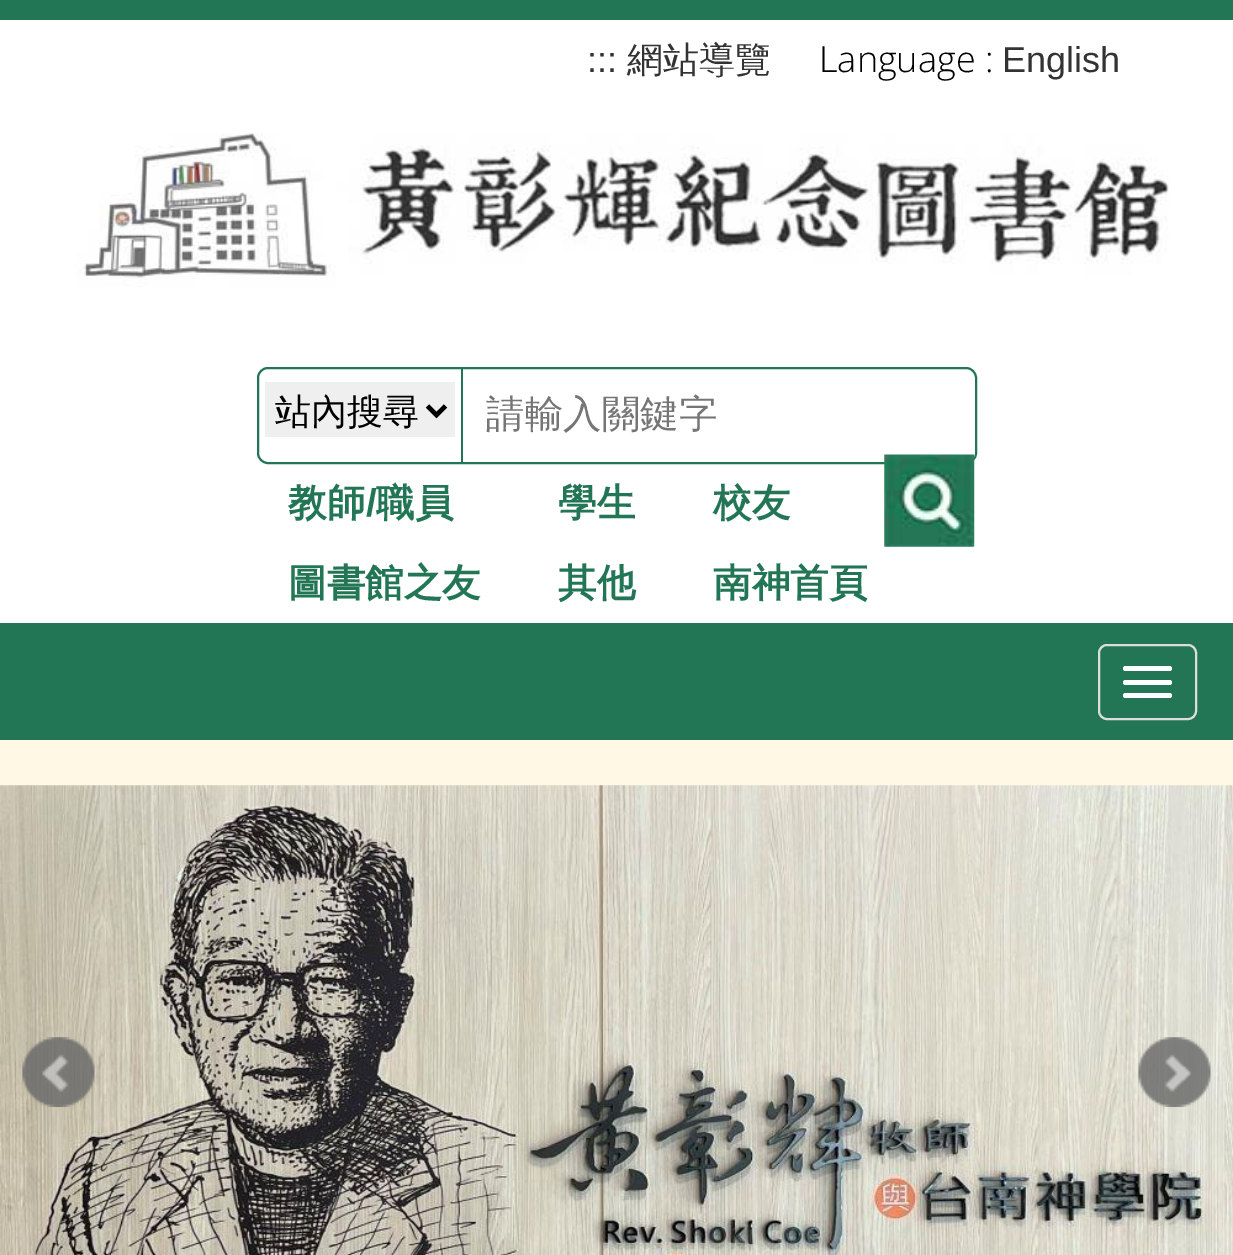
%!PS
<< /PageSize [1233 1255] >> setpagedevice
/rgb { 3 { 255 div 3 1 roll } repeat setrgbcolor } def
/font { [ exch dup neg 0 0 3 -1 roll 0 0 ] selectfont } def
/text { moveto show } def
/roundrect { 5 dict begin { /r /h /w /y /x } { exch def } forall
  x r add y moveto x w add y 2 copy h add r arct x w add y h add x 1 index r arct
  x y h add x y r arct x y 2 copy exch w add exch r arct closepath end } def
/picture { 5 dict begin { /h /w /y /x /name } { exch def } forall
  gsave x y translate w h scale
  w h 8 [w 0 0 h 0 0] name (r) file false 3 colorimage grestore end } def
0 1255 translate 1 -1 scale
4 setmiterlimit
255 248 229 rgb
0 0 1233 1255 rectfill
255 255 255 rgb
0 20 1233 603 rectfill
34 118 85 rgb
0 0 1233 20 rectfill
(img_01.rgb) 76 133 1093 154 picture
2 setlinewidth
258 368 718 95 10 roundrect stroke
461 369 2 95 rectfill
239 239 239 rgb
265 382 190 55 rectfill
0 0 0 rgb
4.5 setlinewidth
427.5 406 moveto 9 9 rlineto 9 -9 rlineto stroke
(img_02.rgb) 884 454 91 93 picture
34 118 85 rgb
0 623 1233 117 rectfill
221 221 221 rgb
2 setlinewidth
1099 645 97 74 8 roundrect stroke
255 255 255 rgb
1123 666 49 5 2.5 roundrect fill
1123 680 49 5 2.5 roundrect fill
1123 693 49 5 2.5 roundrect fill
(img_03.rgb) 0 785 1233 470 picture
(img_04.rgb) 22 1037 73 70 picture
(img_05.rgb) 1138 1037 73 70 picture
/LiberationSans-Regular 36 font
51 51 51 rgb
(:::) 587 72 text
/WenQuanYiZenHei-Medium 36 font
(網站導覽) 627 72 text
/OpenSans-Light 36 font
0 0 0 rgb
(Language :) 819 72 text
/LiberationSans-Regular 36 font
51 51 51 rgb
(English) 1002 72 text
gsave
275 383 144 54 rectclip
/WenQuanYiZenHei-Medium 36 font
0 0 0 rgb
(站內搜尋) 275 424 text
grestore
/WenQuanYiZenHei-Medium 38.5 font
117 117 117 rgb
(請輸入關鍵字) 486 427 text
/WenQuanYiZenHei-Bold 38.5 font
34 118 85 rgb
(教師) 288 516 text
/LiberationSans-Bold 38.5 font
(/) 366 516 text
/WenQuanYiZenHei-Bold 38.5 font
(職員) 376 516 text
(學生) 558 516 text
(校友) 713 516 text
(圖書館之友) 288 596 text
(其他) 558 596 text
(南神首頁) 713 596 text
showpage
